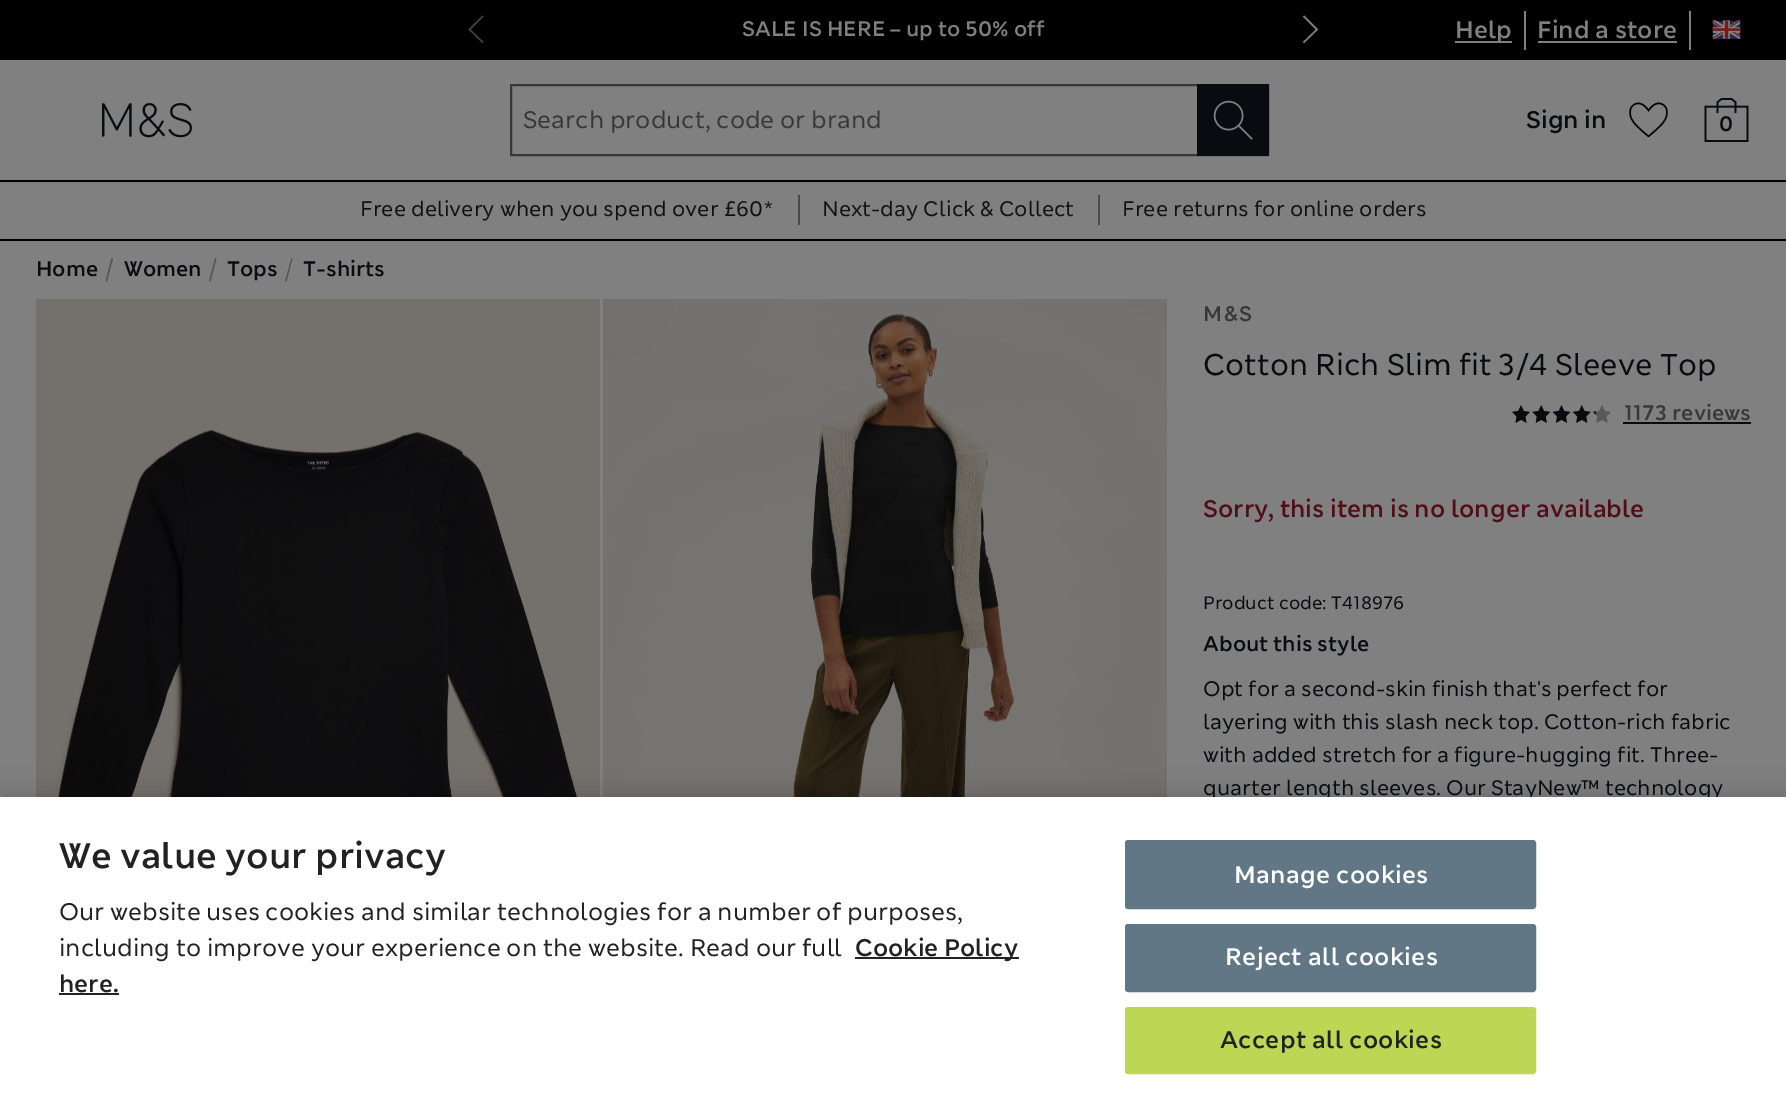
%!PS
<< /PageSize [1786 1103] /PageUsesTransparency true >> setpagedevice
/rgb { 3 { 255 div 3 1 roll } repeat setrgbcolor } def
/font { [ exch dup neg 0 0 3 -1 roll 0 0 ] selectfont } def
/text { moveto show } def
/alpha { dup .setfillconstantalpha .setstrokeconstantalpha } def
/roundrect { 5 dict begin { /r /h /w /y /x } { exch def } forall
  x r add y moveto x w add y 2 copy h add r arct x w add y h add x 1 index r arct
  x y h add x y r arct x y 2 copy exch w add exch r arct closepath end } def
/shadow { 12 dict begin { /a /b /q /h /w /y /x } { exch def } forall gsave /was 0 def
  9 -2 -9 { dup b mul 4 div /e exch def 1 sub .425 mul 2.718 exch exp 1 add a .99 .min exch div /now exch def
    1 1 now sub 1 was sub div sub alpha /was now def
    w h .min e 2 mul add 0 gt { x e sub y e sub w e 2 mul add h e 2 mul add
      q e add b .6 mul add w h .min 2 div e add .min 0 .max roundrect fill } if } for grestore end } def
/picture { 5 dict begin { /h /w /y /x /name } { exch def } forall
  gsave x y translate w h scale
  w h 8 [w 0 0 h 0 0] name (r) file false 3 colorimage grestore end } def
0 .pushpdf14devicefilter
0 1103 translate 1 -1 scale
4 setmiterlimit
128 128 128 rgb
0 0 1786 1103 rectfill
0 0 0 rgb
0 0 1786 60 rectfill
64 64 64 rgb
1.5 setlinewidth
483 16 moveto -13.5 13.5 rlineto 13.5 13 rlineto stroke
128 128 128 rgb
1303.5 16 moveto 13.5 13.5 rlineto -13.5 13 rlineto stroke
1524 11 2 39 rectfill
1455 41 57 2 rectfill
1689 11 2 39 rectfill
1538 41 139 2 rectfill
(img_01.rgb) 1712 20 29 19 picture
0 0 0 rgb
0 180 1786 2 rectfill
(img_02.rgb) 102 103 90 35 picture
55 55 55 rgb
2 setlinewidth
511 85 757 70 rectstroke
8 12 16 rgb
1197 84 72 72 rectfill
(img_03.rgb) 1213 100 40 40 picture
(img_04.rgb) 1629 102 39 36 picture
(img_05.rgb) 1704 98 45 44 picture
0 0 0 rgb
0 239 1786 2 rectfill
74 74 74 rgb
798 195 2 30 rectfill
1098 195 2 30 rectfill
88 88 88 rgb
111.5 258 moveto 1.5 0.5 rlineto -6 23 rlineto -1.5 -0.5 rlineto closepath fill
215 258 moveto 1.5 0.5 rlineto -6 23 rlineto -1.5 -0.5 rlineto closepath fill
291.5 258 moveto 1 0.5 rlineto -6 23 rlineto -1.5 -0.5 rlineto closepath fill
(img_06.rgb) 36 299 564 498 picture
(img_07.rgb) 603 299 564 498 picture
(img_08.rgb) 1512 405 99 18 picture
(img_09.rgb) 1512 405 84 18 picture
8 12 16 rgb
1623 422 128 2 rectfill
0 0 0 rgb
0 797 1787 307 0 13.5 0.2 shadow
/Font-SemiBold 21 font
128 128 128 rgb
(SALE IS HERE – up to 50% off) 742 36 text
/Font-SemiBold 24 font
(Help) 1455 38 text
(Find a store) 1537 38 text
/Font-Regular 24 font
56 56 56 rgb
(Search product, code or brand) 523 128 text
/Font-SemiBold 24 font
8 12 16 rgb
(Sign in) 1526 128 text
/Font-SemiBold 21 font
(0) 1719 131 text
/Font-Regular 21 font
17 17 17 rgb
(Free delivery when you spend over £60*) 360 216 text
(Next-day Click & Collect) 822 216 text
(Free returns for online orders) 1122 216 text
/Font-SemiBold 21 font
8 12 16 rgb
(Home) 36 276 text
(Women) 124 276 text
(Tops) 227 276 text
(T-shirts) 303 276 text
56 56 56 rgb
1203 321 moveto 1.5 0 (M&S) ashow
/Font-Regular 30 font
8 12 16 rgb
(Cotton Rich Slim fit 3/4 Sleeve Top) 1203 375 text
/Font-SemiBold 21 font
56 56 56 rgb
(1173 reviews) 1624 420 text
/Font-SemiBold 24 font
83 13 23 rgb
(Sorry, this item is no longer available) 1203 517 text
/Font-Regular 18 font
8 12 16 rgb
(Product code: T418976) 1203 609 text
/Font-SemiBold 21 font
(About this style) 1203 651 text
/Font-Regular 21 font
(Opt for a second-skin finish that's perfect for) 1203 696 text
(layering with this slash neck top. Cotton-rich fabric) 1203 729 text
(with added stretch for a figure-hugging fit. Three-) 1203 762 text
(quarter length sleeves. Our StayNew™ technology) 1203 795 text
255 255 255 rgb
0 797 1786 306 rectfill
/Font-SemiBold 35.5 font
34 34 34 rgb
(We value your privacy) 59 868 text
/Font-Regular 24 font
(Our website uses cookies and similar technologies for a number of purposes,) 59 920 text
(including to improve your experience on the website. Read our full) 59 956 text
855 957 164 2 rectfill
/Font-SemiBold 24 font
(Cookie Policy) 855 956 text
(here.) 59 992 text
59 993 60 2 rectfill
98 119 134 rgb
1126 841 409 67 2 roundrect gsave fill grestore
stroke
255 255 255 rgb
1234 883 moveto 0.25 0 (Manage cookies) ashow
98 119 134 rgb
1126 925 409 66 2 roundrect gsave fill grestore
stroke
255 255 255 rgb
1225 965 moveto 0.25 0 (Reject all cookies) ashow
189 215 85 rgb
1126 1008 409 65 2 roundrect gsave fill grestore
stroke
34 34 34 rgb
1220 1048 moveto 0.25 0 (Accept all cookies) ashow
.poppdf14devicefilter showpage
